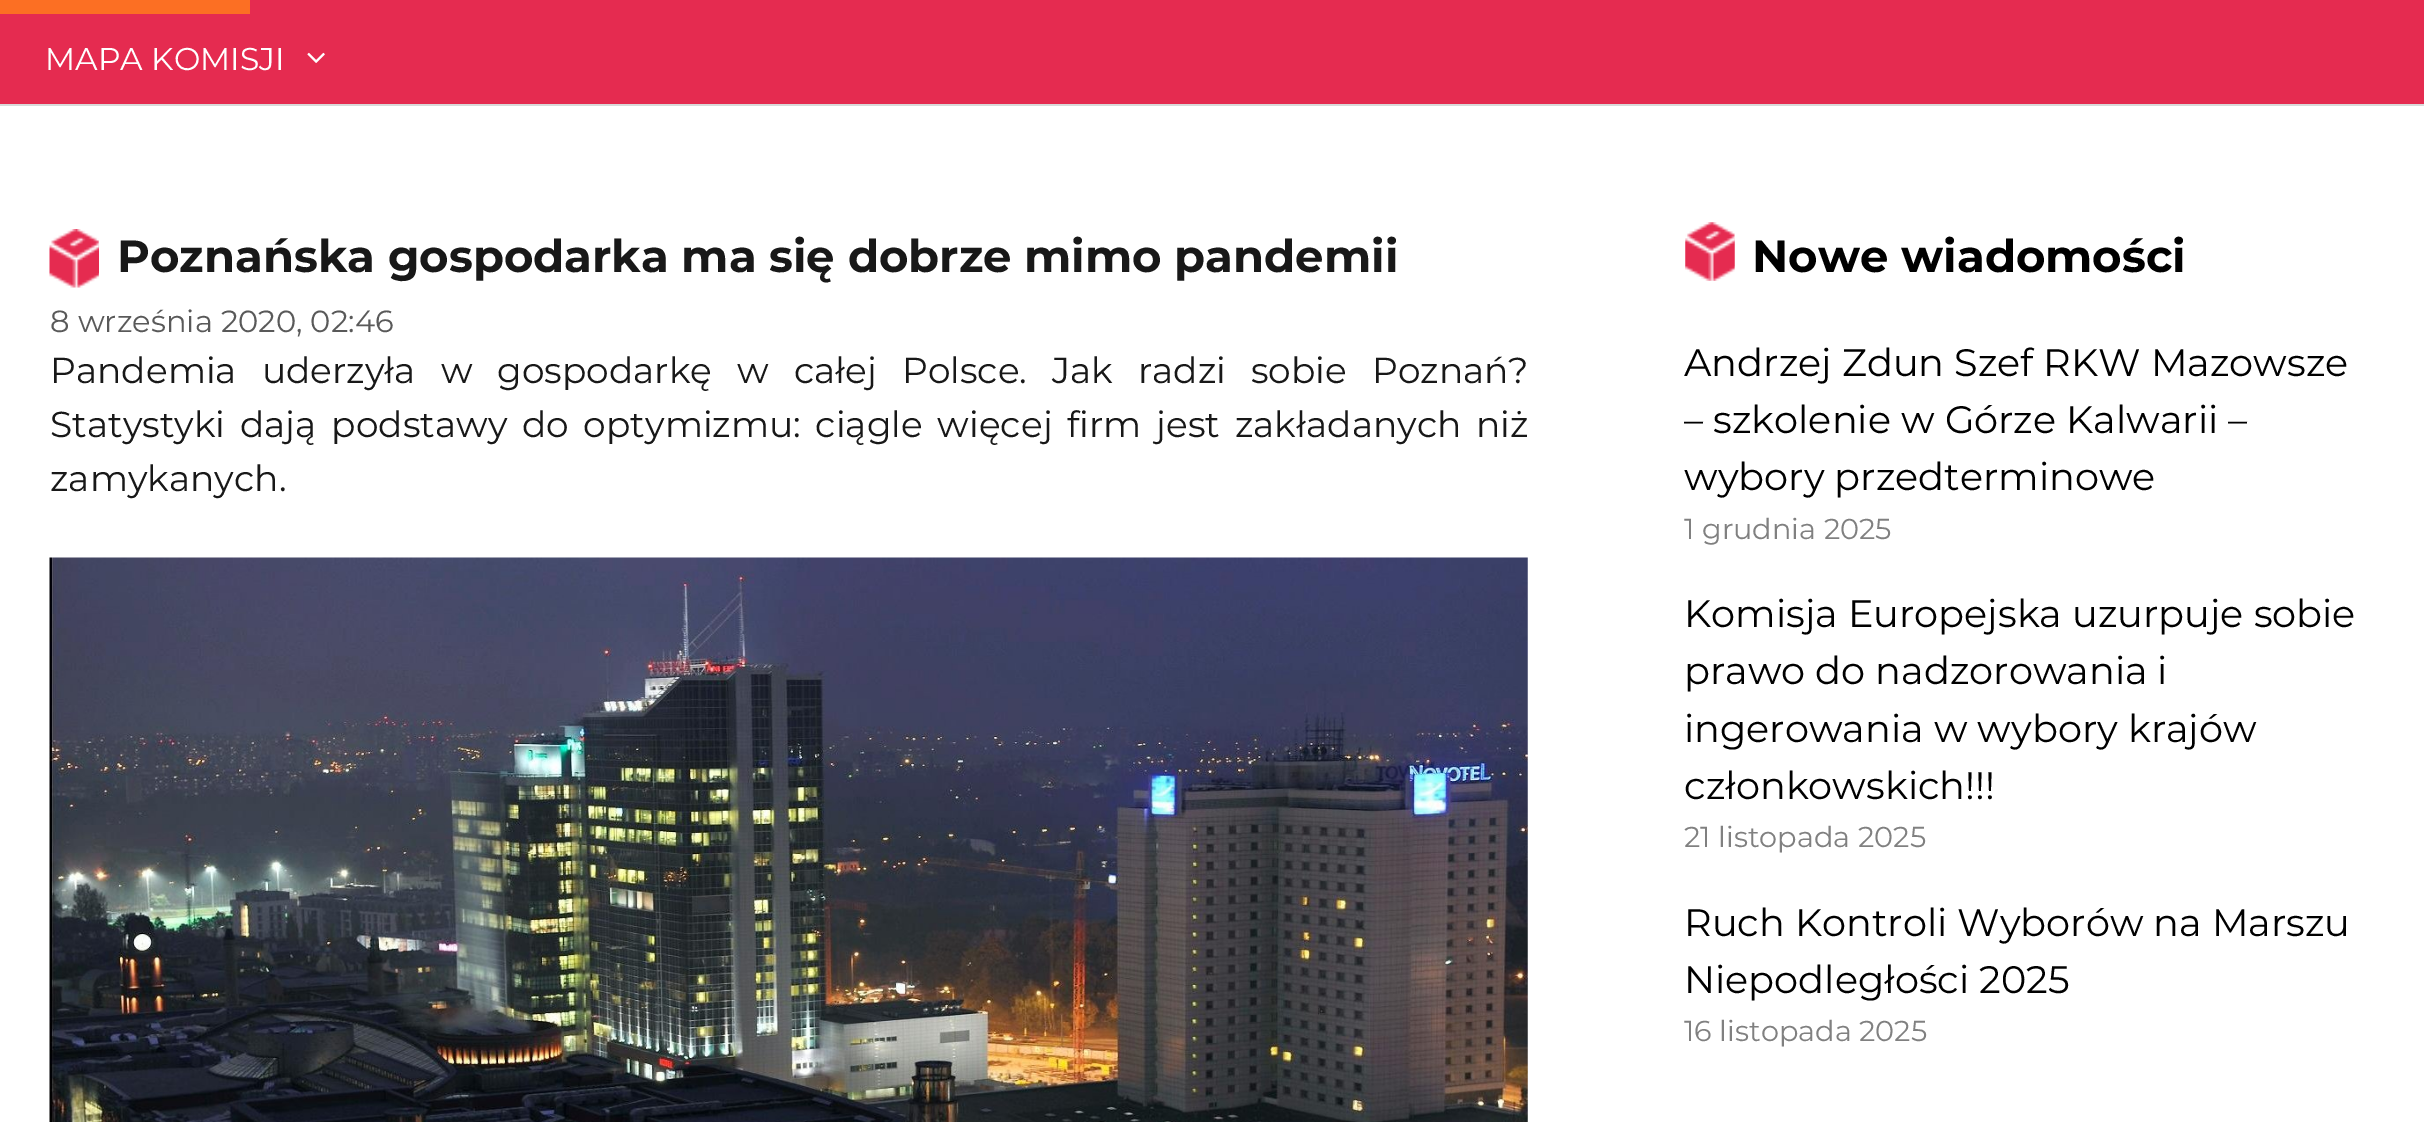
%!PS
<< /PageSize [2424 1122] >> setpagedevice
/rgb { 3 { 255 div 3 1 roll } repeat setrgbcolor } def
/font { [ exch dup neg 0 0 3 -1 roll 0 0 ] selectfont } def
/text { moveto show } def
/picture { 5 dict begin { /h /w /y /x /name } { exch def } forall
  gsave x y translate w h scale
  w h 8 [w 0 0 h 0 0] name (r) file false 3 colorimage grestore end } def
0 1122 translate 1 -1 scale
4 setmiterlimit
255 255 255 rgb
0 0 2424 1122 rectfill
229 43 80 rgb
0 0 2424 104 rectfill
217 217 217 rgb
0 104 2424 2 rectfill
252 111 35 rgb
0 0 250 14 rectfill
(img_01.rgb) 307 52 18 11 picture
(img_02.rgb) 49 229 50 59 picture
(img_03.rgb) 49 557 1479 565 picture
(img_04.rgb) 1685 222 50 59 picture
/Montserrat-Regular 31.5 font
255 255 255 rgb
(MAPA KOMISJI) 45 70 text
/Montserrat-Bold 45 font
24 24 24 rgb
(Poznańska gospodarka ma się dobrze mimo pandemii) 117 272 text
/Montserrat-Regular 30.6 font
89 89 89 rgb
(8 września 2020, 02:46) 50 332 text
/Montserrat-Regular 36 font
24 24 24 rgb
50 383 moveto 15.5 0 32 (Pandemia uderzyła w gospodarkę w całej Polsce. Jak radzi sobie Poznań?) widthshow
50 437 moveto 5.25 0 32 (Statystyki dają podstawy do optymizmu: ciągle więcej firm jest zakładanych niż) widthshow
(zamykanych.) 50 491 text
/Montserrat-Bold 45 font
0 0 0 rgb
(Nowe wiadomości) 1752 272 text
/Montserrat-Regular 38.25 font
(Andrzej Zdun Szef RKW Mazowsze) 1684 376 text
(– szkolenie w Górze Kalwarii –) 1684 433 text
(wybory przedterminowe) 1684 490 text
/Montserrat-Regular 28.75 font
128 128 128 rgb
(1 grudnia 2025) 1684 539 text
/Montserrat-Regular 38.25 font
0 0 0 rgb
(Komisja Europejska uzurpuje sobie) 1684 627 text
(prawo do nadzorowania i) 1684 684 text
(ingerowania w wybory krajów) 1684 742 text
(członkowskich!!!) 1684 799 text
/Montserrat-Regular 28.75 font
128 128 128 rgb
(21 listopada 2025) 1684 847 text
/Montserrat-Regular 38.25 font
0 0 0 rgb
(Ruch Kontroli Wyborów na Marszu) 1684 936 text
(Niepodległości 2025) 1684 993 text
/Montserrat-Regular 28.75 font
128 128 128 rgb
(16 listopada 2025) 1684 1041 text
showpage
